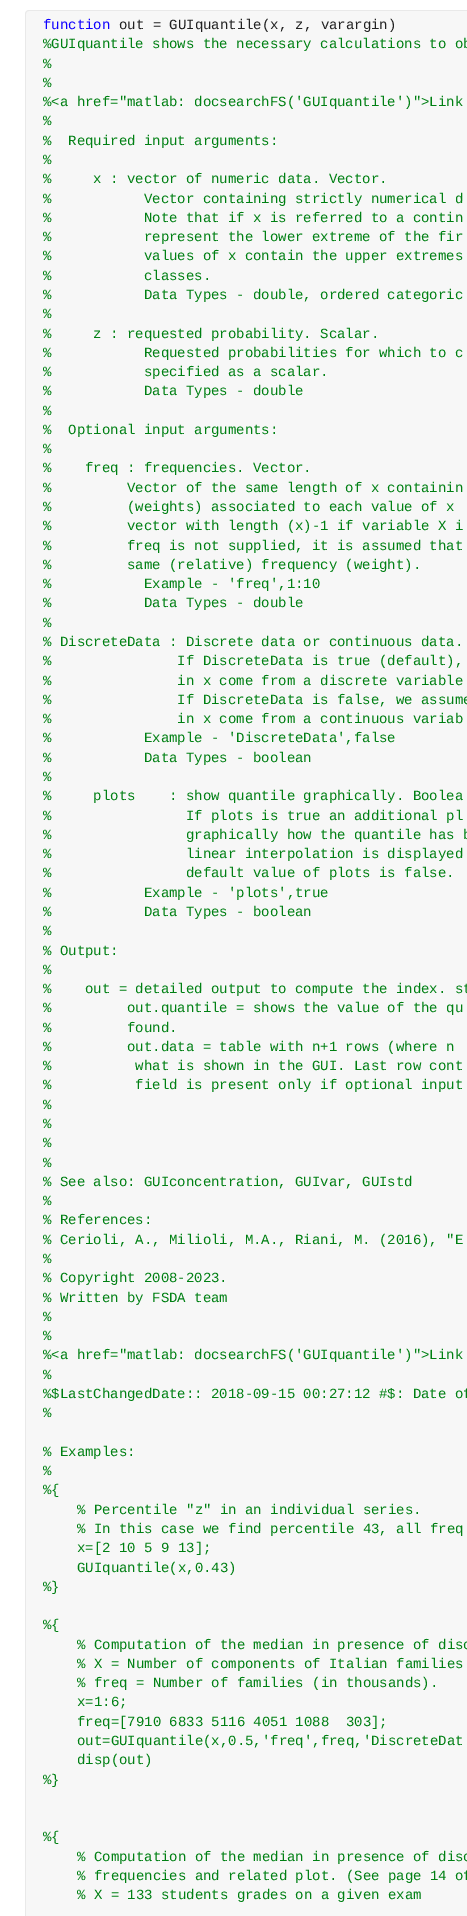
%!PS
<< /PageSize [467 1916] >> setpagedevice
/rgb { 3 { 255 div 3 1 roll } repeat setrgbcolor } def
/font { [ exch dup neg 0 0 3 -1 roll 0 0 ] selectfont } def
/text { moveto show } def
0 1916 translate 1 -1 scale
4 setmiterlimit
255 255 255 rgb
0 0 467 1916 rectfill
247 247 247 rgb
29 10 moveto 438 0 rlineto 0 1906 rlineto -442 0 rlineto 0 -1902 rlineto 0 -2 2 -4 4 -4 rcurveto closepath fill
233 233 233 rgb
29 10 moveto 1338 0 rlineto 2 0 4 2 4 4 rcurveto 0 21 rlineto -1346 0 rlineto 0 -21 rlineto 0 -2 2 -4 4 -4 rcurveto closepath 29 11 moveto 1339 0 rlineto 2 2 rlineto 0 22 rlineto -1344 0 rlineto 0 -21 rlineto 0 -2 1 -3 3 -3 rcurveto closepath eofill
25 35 1 1881 rectfill
/LiberationMono-Regular 14 font
14 0 255 rgb
(function) 43 29 text
33 33 33 rgb
(out = GUIquantile\(x, z, varargin\)) 119 29 text
0 128 19 rgb
(%GUIquantile shows the necessary calculations to ob) 43 48 text
(%) 43 68 text
(%) 43 87 text
(%<a href="matlab: docsearchFS\('GUIquantile'\)">Link) 43 106 text
(%) 43 125 text
(%  Required input arguments:) 43 145 text
(%) 43 164 text
(%     x : vector of numeric data. Vector.) 43 183 text
(%           Vector containing strictly numerical d) 43 203 text
(%           Note that if x is referred to a contin) 43 222 text
(%           represent the lower extreme of the fir) 43 241 text
(%           values of x contain the upper extremes) 43 260 text
(%           classes.) 43 280 text
(%           Data Types - double, ordered categoric) 43 299 text
(%) 43 318 text
(%     z : requested probability. Scalar.) 43 338 text
(%           Requested probabilities for which to c) 43 357 text
(%           specified as a scalar.) 43 376 text
(%           Data Types - double) 43 395 text
(%) 43 415 text
(%  Optional input arguments:) 43 434 text
(%) 43 453 text
(%    freq : frequencies. Vector.) 43 472 text
(%         Vector of the same length of x containin) 43 492 text
(%         \(weights\) associated to each value of x) 43 511 text
(%         vector with length \(x\)-1 if variable X i) 43 530 text
(%         freq is not supplied, it is assumed that) 43 550 text
(%         same \(relative\) frequency \(weight\).) 43 569 text
(%           Example - 'freq',1:10) 43 588 text
(%           Data Types - double) 43 607 text
(%) 43 627 text
(% DiscreteData : Discrete data or continuous data.) 43 646 text
(%               If DiscreteData is true \(default\),) 43 665 text
(%               in x come from a discrete variable) 43 685 text
(%               If DiscreteData is false, we assume) 43 704 text
(%               in x come from a continuous variab) 43 723 text
(%           Example - 'DiscreteData',false) 43 742 text
(%           Data Types - boolean) 43 762 text
(%) 43 781 text
(%     plots    : show quantile graphically. Boolea) 43 800 text
(%                If plots is true an additional pl) 43 820 text
(%                graphically how the quantile has b) 43 839 text
(%                linear interpolation is displayed) 43 858 text
(%                default value of plots is false.) 43 877 text
(%           Example - 'plots',true) 43 897 text
(%           Data Types - boolean) 43 916 text
(%) 43 935 text
(% Output:) 43 955 text
(%) 43 974 text
(%    out = detailed output to compute the index. st) 43 993 text
(%         out.quantile = shows the value of the qu) 43 1012 text
(%         found.) 43 1032 text
(%         out.data = table with n+1 rows \(where n) 43 1051 text
(%          what is shown in the GUI. Last row cont) 43 1070 text
(%          field is present only if optional input) 43 1089 text
(%) 43 1109 text
(%) 43 1128 text
(%) 43 1147 text
(%) 43 1167 text
(% See also: GUIconcentration, GUIvar, GUIstd) 43 1186 text
(%) 43 1205 text
(% References:) 43 1224 text
(% Cerioli, A., Milioli, M.A., Riani, M. \(2016\), "E) 43 1244 text
(%) 43 1263 text
(% Copyright 2008-2023.) 43 1282 text
(% Written by FSDA team) 43 1302 text
(%) 43 1321 text
(%) 43 1340 text
(%<a href="matlab: docsearchFS\('GUIquantile'\)">Link) 43 1359 text
(%) 43 1379 text
(%$LastChangedDate:: 2018-09-15 00:27:12 #$: Date of) 43 1398 text
(%) 43 1417 text
(% Examples:) 43 1456 text
(%) 43 1475 text
(%{) 43 1494 text
(% Percentile "z" in an individual series.) 77 1514 text
(% In this case we find percentile 43, all freq) 77 1533 text
(x=[2 10 5 9 13];) 77 1552 text
(GUIquantile\(x,0.43\)) 77 1572 text
(%}) 43 1591 text
(%{) 43 1629 text
(% Computation of the median in presence of disc) 77 1649 text
(% X = Number of components of Italian families) 77 1668 text
(% freq = Number of families \(in thousands\).) 77 1687 text
(x=1:6;) 77 1706 text
(freq=[7910 6833 5116 4051 1088  303];) 77 1726 text
(out=GUIquantile\(x,0.5,'freq',freq,'DiscreteDat) 77 1745 text
(disp\(out\)) 77 1764 text
(%}) 43 1784 text
(%{) 43 1841 text
(% Computation of the median in presence of disc) 77 1861 text
(% frequencies and related plot. \(See page 14 of) 77 1880 text
(% X = 133 students grades on a given exam) 77 1899 text
showpage
